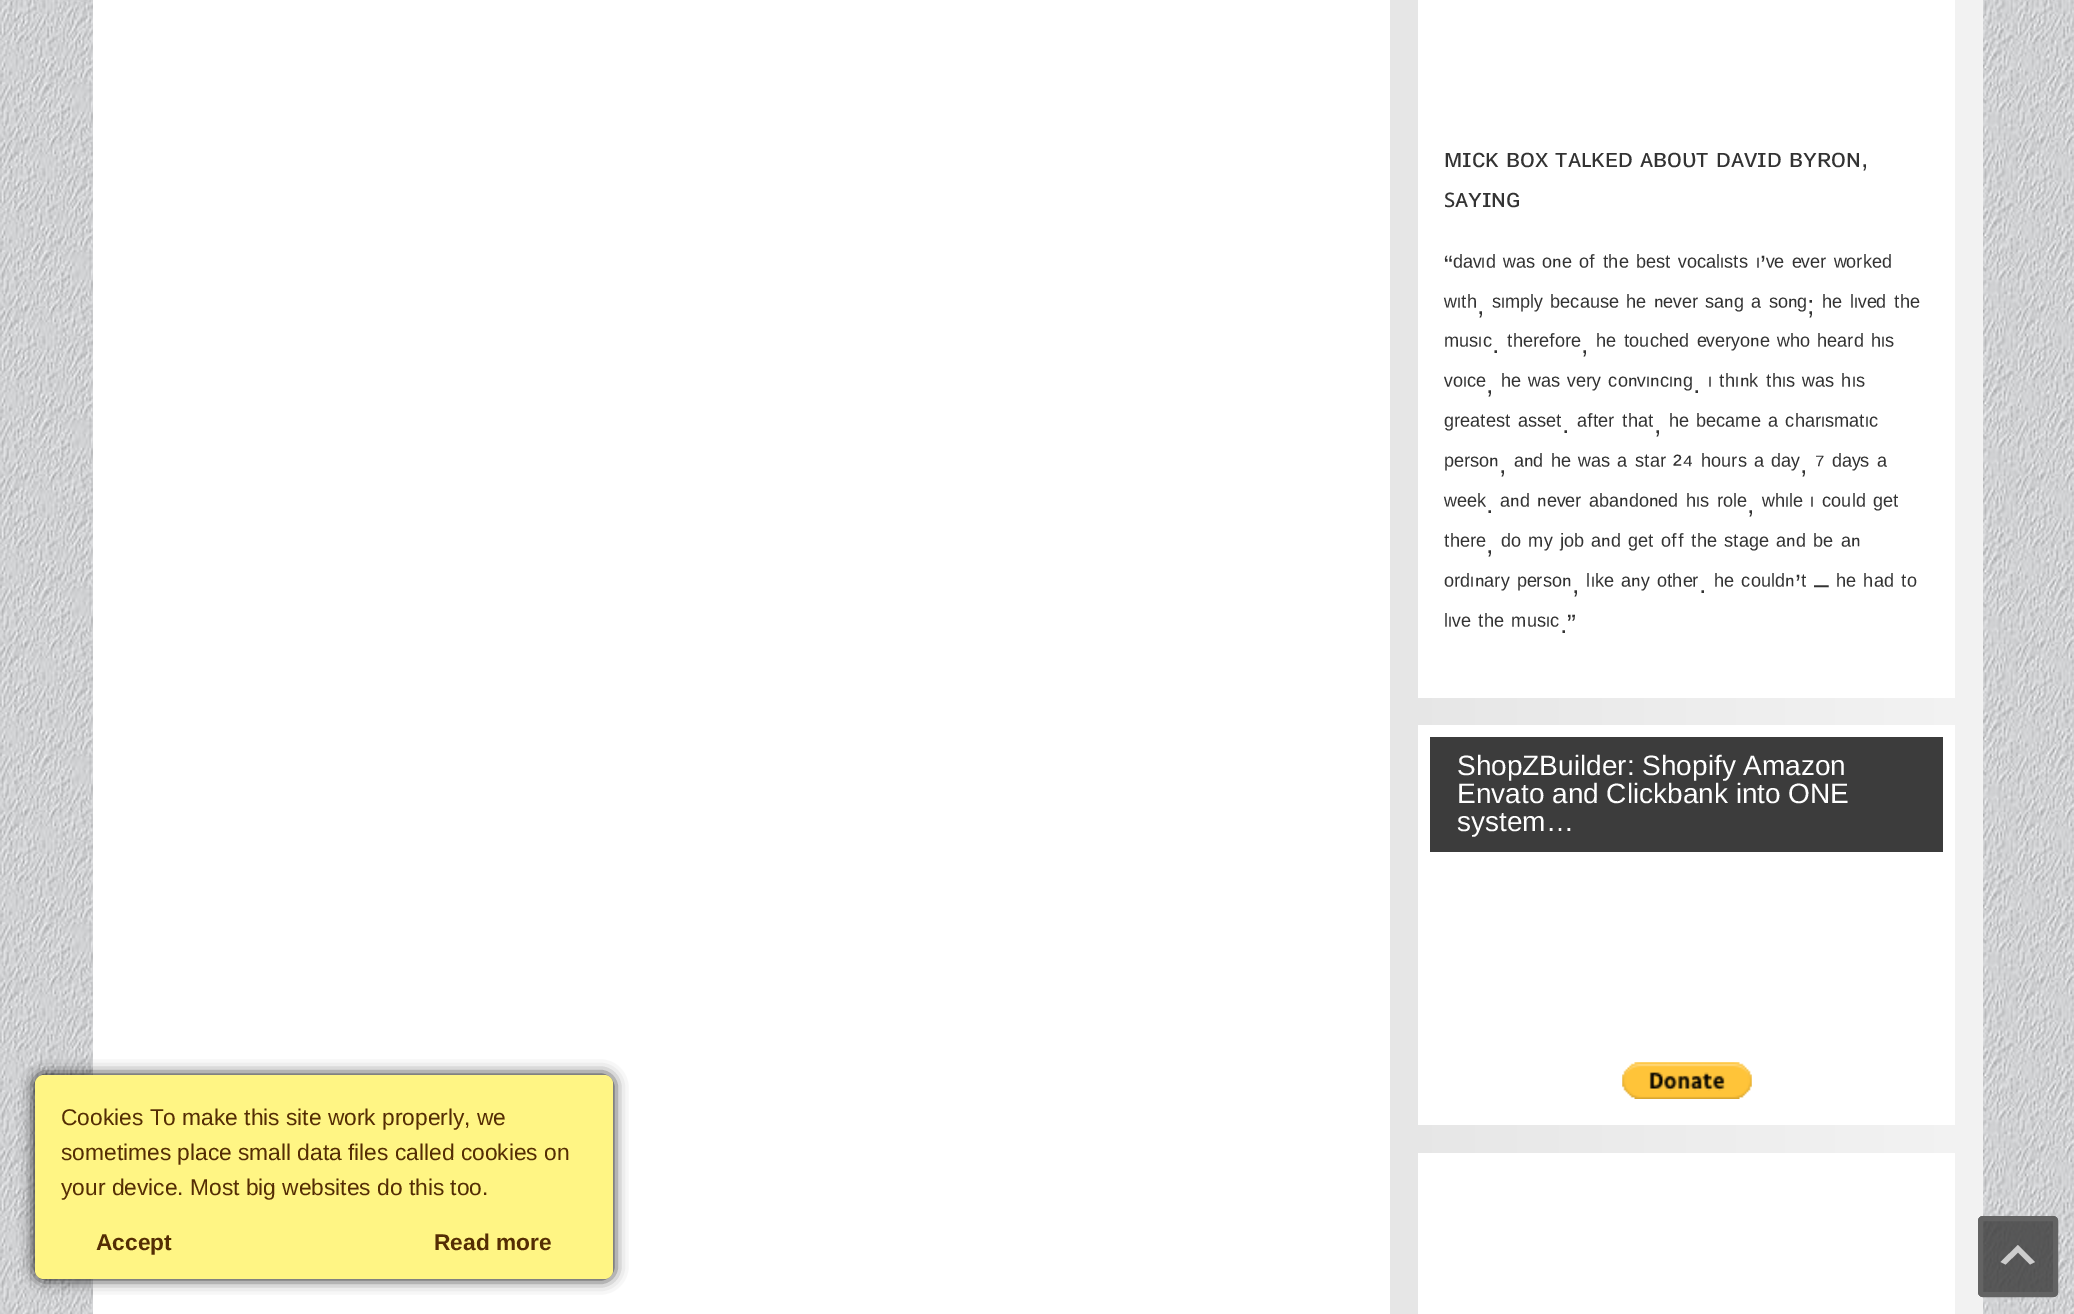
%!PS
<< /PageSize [2074 1314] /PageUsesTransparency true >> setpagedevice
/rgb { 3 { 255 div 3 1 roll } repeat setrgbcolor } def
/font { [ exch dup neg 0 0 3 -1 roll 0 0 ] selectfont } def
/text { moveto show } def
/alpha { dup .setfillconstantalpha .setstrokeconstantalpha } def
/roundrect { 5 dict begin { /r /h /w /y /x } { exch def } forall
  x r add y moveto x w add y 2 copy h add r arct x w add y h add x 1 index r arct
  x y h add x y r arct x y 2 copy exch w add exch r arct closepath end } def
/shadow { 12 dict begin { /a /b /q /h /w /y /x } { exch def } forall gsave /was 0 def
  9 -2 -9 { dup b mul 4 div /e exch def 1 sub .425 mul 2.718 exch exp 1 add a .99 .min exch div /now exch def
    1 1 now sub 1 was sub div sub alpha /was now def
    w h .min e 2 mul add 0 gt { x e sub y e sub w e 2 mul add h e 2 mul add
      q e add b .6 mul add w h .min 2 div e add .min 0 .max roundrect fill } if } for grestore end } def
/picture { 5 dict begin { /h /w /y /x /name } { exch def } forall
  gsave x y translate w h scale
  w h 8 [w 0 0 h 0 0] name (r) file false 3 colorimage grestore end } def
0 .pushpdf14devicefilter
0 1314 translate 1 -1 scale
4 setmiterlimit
255 255 255 rgb
0 0 2074 1314 rectfill
(img_01.rgb) 0 0 2074 1314 picture
93 0 1297 1314 rectfill
gsave 1390 0 moveto 593 0 rlineto 0 1314 rlineto -593 0 rlineto closepath clip newpath
<< /ShadingType 2 /ColorSpace /DeviceRGB /Coords [1389 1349 1983 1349] /Extend [true true] /Function << /FunctionType 2 /Domain [0 1] /C0 [0.902 0.902 0.902] /C1 [0.953 0.953 0.953] /N 1 >> >> shfill grestore
1418 0 537 698 rectfill
1418 725 537 400 rectfill
60 60 60 rgb
1430 737 513 115 rectfill
(img_02.rgb) 1622 1062 130 37 picture
255 255 255 rgb
1418 1153 537 161 rectfill
0 0 0 rgb
35 1075 578 204 9 7 1 shadow
255 245 132 rgb
35 1075 578 204 9 roundrect fill
0.85 alpha
65 65 65 rgb
1978 1216 80 81 5 roundrect fill
0.9 alpha
100 100 100 rgb
5 setlinewidth
1980.5 1218.5 75 76 2.5 roundrect stroke
0.7 alpha
255 255 255 rgb
2030 1264.5 moveto -12 -12 rlineto -12.5 12 rlineto -5 -2.5 rlineto 17.5 -17 rlineto 17 17 rlineto closepath fill
/LiberationSans-Regular 26.6 font
1 alpha
51 51 51 rgb
(ᴍɪᴄᴋ ʙᴏx ᴛᴀʟᴋᴇᴅ ᴀʙᴏᴜᴛ ᴅᴀᴠɪᴅ ʙʏʀᴏɴ,) 1444 167 text
/NotoSans-Regular 26.6 font
(ꜱ) 1444 207 text
/LiberationSans-Regular 26.6 font
(ᴀʏɪɴɢ) 1455 207 text
(“ᵈᵃᵛᶦᵈ ʷᵃˢ ᵒⁿᵉ ᵒᶠ ᵗʰᵉ ᵇᵉˢᵗ ᵛᵒᶜᵃˡᶦˢᵗˢ ᶦ’ᵛᵉ ᵉᵛᵉʳ ʷᵒʳᵏᵉᵈ) 1444 274 text
(ʷᶦᵗʰ, ˢᶦᵐᵖˡʸ ᵇᵉᶜᵃᵘˢᵉ ʰᵉ ⁿᵉᵛᵉʳ ˢᵃⁿᵍ ᵃ ˢᵒⁿᵍ; ʰᵉ ˡᶦᵛᵉᵈ ᵗʰᵉ) 1444 314 text
(ᵐᵘˢᶦᶜ. ᵗʰᵉʳᵉᶠᵒʳᵉ, ʰᵉ ᵗᵒᵘᶜʰᵉᵈ ᵉᵛᵉʳʸᵒⁿᵉ ʷʰᵒ ʰᵉᵃʳᵈ ʰᶦˢ) 1444 353 text
(ᵛᵒᶦᶜᵉ, ʰᵉ ʷᵃˢ ᵛᵉʳʸ ᶜᵒⁿᵛᶦⁿᶜᶦⁿᵍ. ᶦ ᵗʰᶦⁿᵏ ᵗʰᶦˢ ʷᵃˢ ʰᶦˢ) 1444 393 text
(ᵍʳᵉᵃᵗᵉˢᵗ ᵃˢˢᵉᵗ. ᵃᶠᵗᵉʳ ᵗʰᵃᵗ, ʰᵉ ᵇᵉᶜᵃᵐᵉ ᵃ ᶜʰᵃʳᶦˢᵐᵃᵗᶦᶜ) 1444 433 text
(ᵖᵉʳˢᵒⁿ, ᵃⁿᵈ ʰᵉ ʷᵃˢ ᵃ ˢᵗᵃʳ ²⁴ ʰᵒᵘʳˢ ᵃ ᵈᵃʸ, ⁷ ᵈᵃʸˢ ᵃ) 1444 473 text
(ʷᵉᵉᵏ. ᵃⁿᵈ ⁿᵉᵛᵉʳ ᵃᵇᵃⁿᵈᵒⁿᵉᵈ ʰᶦˢ ʳᵒˡᵉ, ʷʰᶦˡᵉ ᶦ ᶜᵒᵘˡᵈ ᵍᵉᵗ) 1444 513 text
(ᵗʰᵉʳᵉ, ᵈᵒ ᵐʸ ʲᵒᵇ ᵃⁿᵈ ᵍᵉᵗ ᵒᶠᶠ ᵗʰᵉ ˢᵗᵃᵍᵉ ᵃⁿᵈ ᵇᵉ ᵃⁿ) 1444 553 text
(ᵒʳᵈᶦⁿᵃʳʸ ᵖᵉʳˢᵒⁿ, ˡᶦᵏᵉ ᵃⁿʸ ᵒᵗʰᵉʳ. ʰᵉ ᶜᵒᵘˡᵈⁿ’ᵗ – ʰᵉ ʰᵃᵈ ᵗᵒ) 1444 593 text
(ˡᶦᵛᵉ ᵗʰᵉ ᵐᵘˢᶦᶜ.”) 1444 633 text
/LiberationSans-Regular 28 font
255 255 255 rgb
(ShopZBuilder: Shopify Amazon) 1457 775 text
(Envato and Clickbank into ONE) 1457 803 text
(system…) 1457 831 text
/LiberationSans-Regular 22.75 font
84 45 4 rgb
(Cookies To make this site work properly, we) 61 1125 text
(sometimes place small data files called cookies on) 61 1160 text
(your device. Most big websites do this too.) 61 1195 text
/LiberationSans-Bold 22.75 font
(Accept) 96 1250 text
(Read more) 434 1250 text
.poppdf14devicefilter showpage
